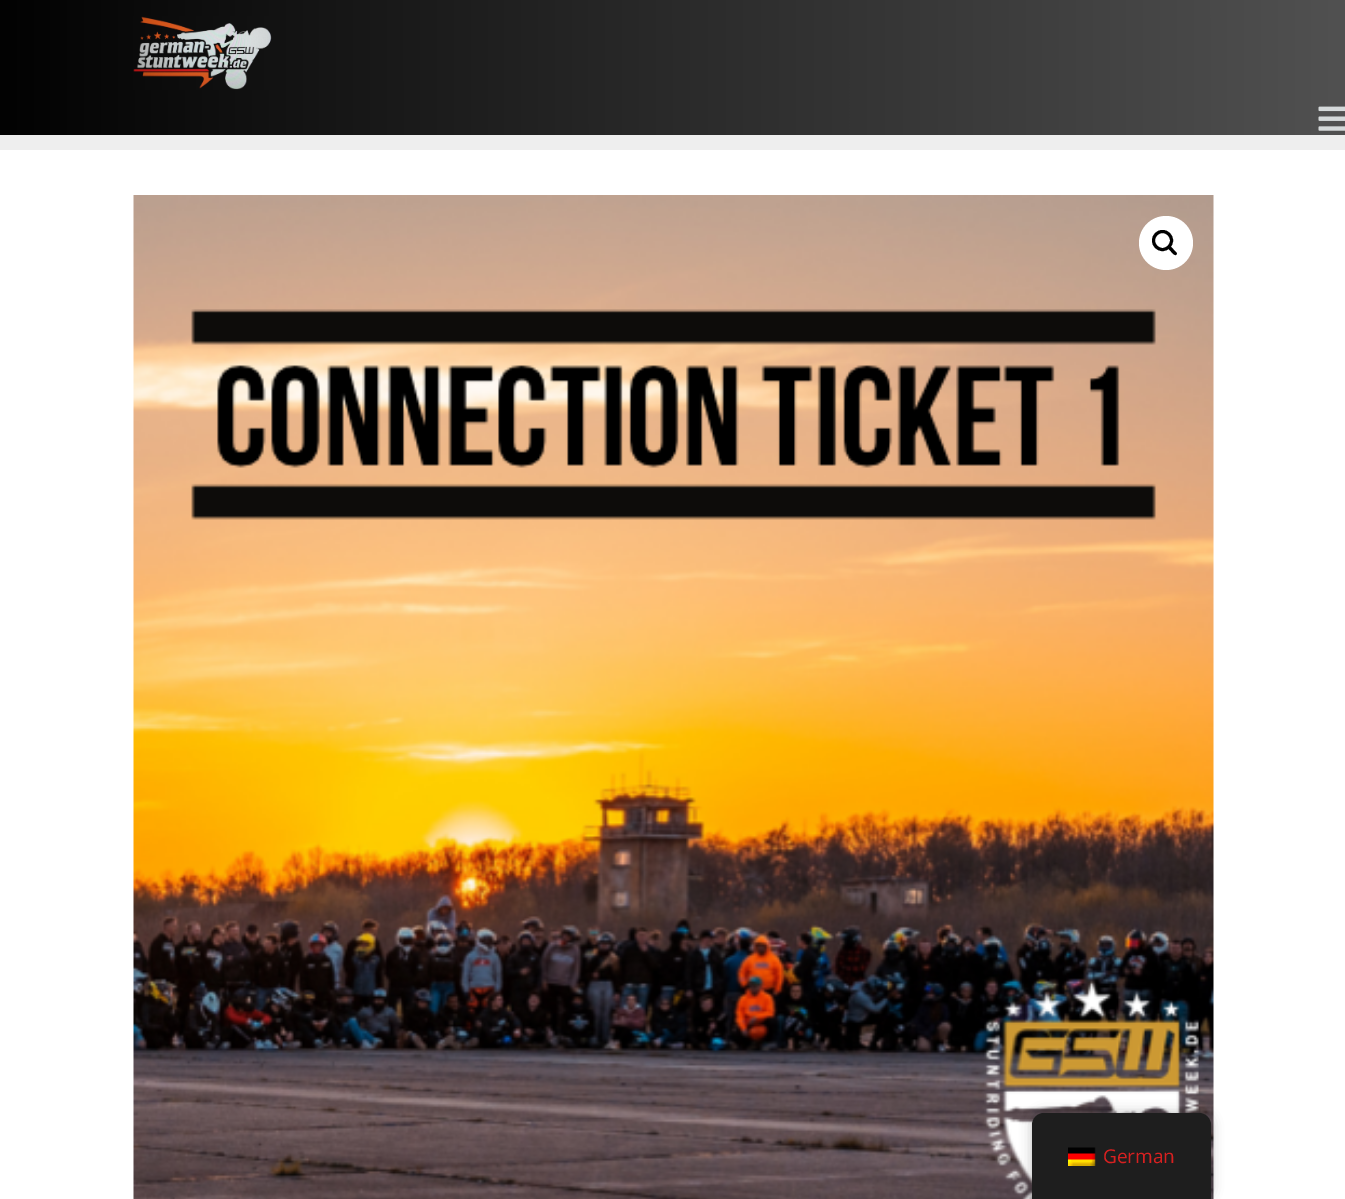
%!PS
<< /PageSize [1345 1199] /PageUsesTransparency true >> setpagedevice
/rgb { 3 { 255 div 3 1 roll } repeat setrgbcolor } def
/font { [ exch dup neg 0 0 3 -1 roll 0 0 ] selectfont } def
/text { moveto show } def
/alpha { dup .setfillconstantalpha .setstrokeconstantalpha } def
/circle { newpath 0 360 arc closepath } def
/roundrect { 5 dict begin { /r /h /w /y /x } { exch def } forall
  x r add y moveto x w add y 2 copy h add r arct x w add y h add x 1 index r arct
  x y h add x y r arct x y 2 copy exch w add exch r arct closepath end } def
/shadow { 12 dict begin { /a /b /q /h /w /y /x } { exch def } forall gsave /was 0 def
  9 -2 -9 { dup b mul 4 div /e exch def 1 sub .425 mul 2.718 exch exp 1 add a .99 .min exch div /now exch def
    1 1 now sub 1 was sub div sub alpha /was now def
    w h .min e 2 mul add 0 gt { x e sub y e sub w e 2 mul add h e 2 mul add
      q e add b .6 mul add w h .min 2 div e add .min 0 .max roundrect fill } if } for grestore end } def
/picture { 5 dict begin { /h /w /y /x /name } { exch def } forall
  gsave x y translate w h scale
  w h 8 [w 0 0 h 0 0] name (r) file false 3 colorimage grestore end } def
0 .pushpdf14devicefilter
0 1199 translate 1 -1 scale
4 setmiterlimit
255 255 255 rgb
0 0 1345 1199 rectfill
238 238 238 rgb
0 135 1345 15 rectfill
gsave 0 0 moveto 1345 0 rlineto 0 135 rlineto -1345 0 rlineto closepath clip newpath
<< /ShadingType 2 /ColorSpace /DeviceRGB /Coords [0 68 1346 67] /Extend [true true] /Function << /FunctionType 2 /Domain [0 1] /C0 [0.008 0.008 0.008] /C1 [0.318 0.318 0.318] /N 1 >> >> shfill grestore
(img_01.rgb) 133 16 139 74 picture
(img_02.rgb) 1318 106 27 25 picture
(img_03.rgb) 133 195 1081 1004 picture
255 255 255 rgb
1166 243 27 circle fill
0 0 0 rgb
3 setlinewidth
1162.5 240.5 9 circle stroke
1168 246 moveto 1.5 -1.5 4.5 2.5 5.5 3.5 rcurveto 0.5 1 4.5 3.5 3 5 rcurveto -1.5 2 -4.5 -2 -5.5 -3 rcurveto -0.5 -1 -4.5 -3.5 -3 -5.5 rcurveto closepath fill
1032 1113 179 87 12 6 0.25 shadow
30 30 30 rgb
1044 1113 moveto 155 0 rlineto 6.5 0 12 5.5 12 12 rcurveto 0 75 rlineto -179 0 rlineto 0 -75 rlineto 0 -6.5 5.5 -12 12 -12 rcurveto closepath fill
(img_04.rgb) 1068 1147 28 19 picture
/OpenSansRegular-Regular 19 font
216 32 32 rgb
(German) 1103 1163 text
.poppdf14devicefilter showpage
